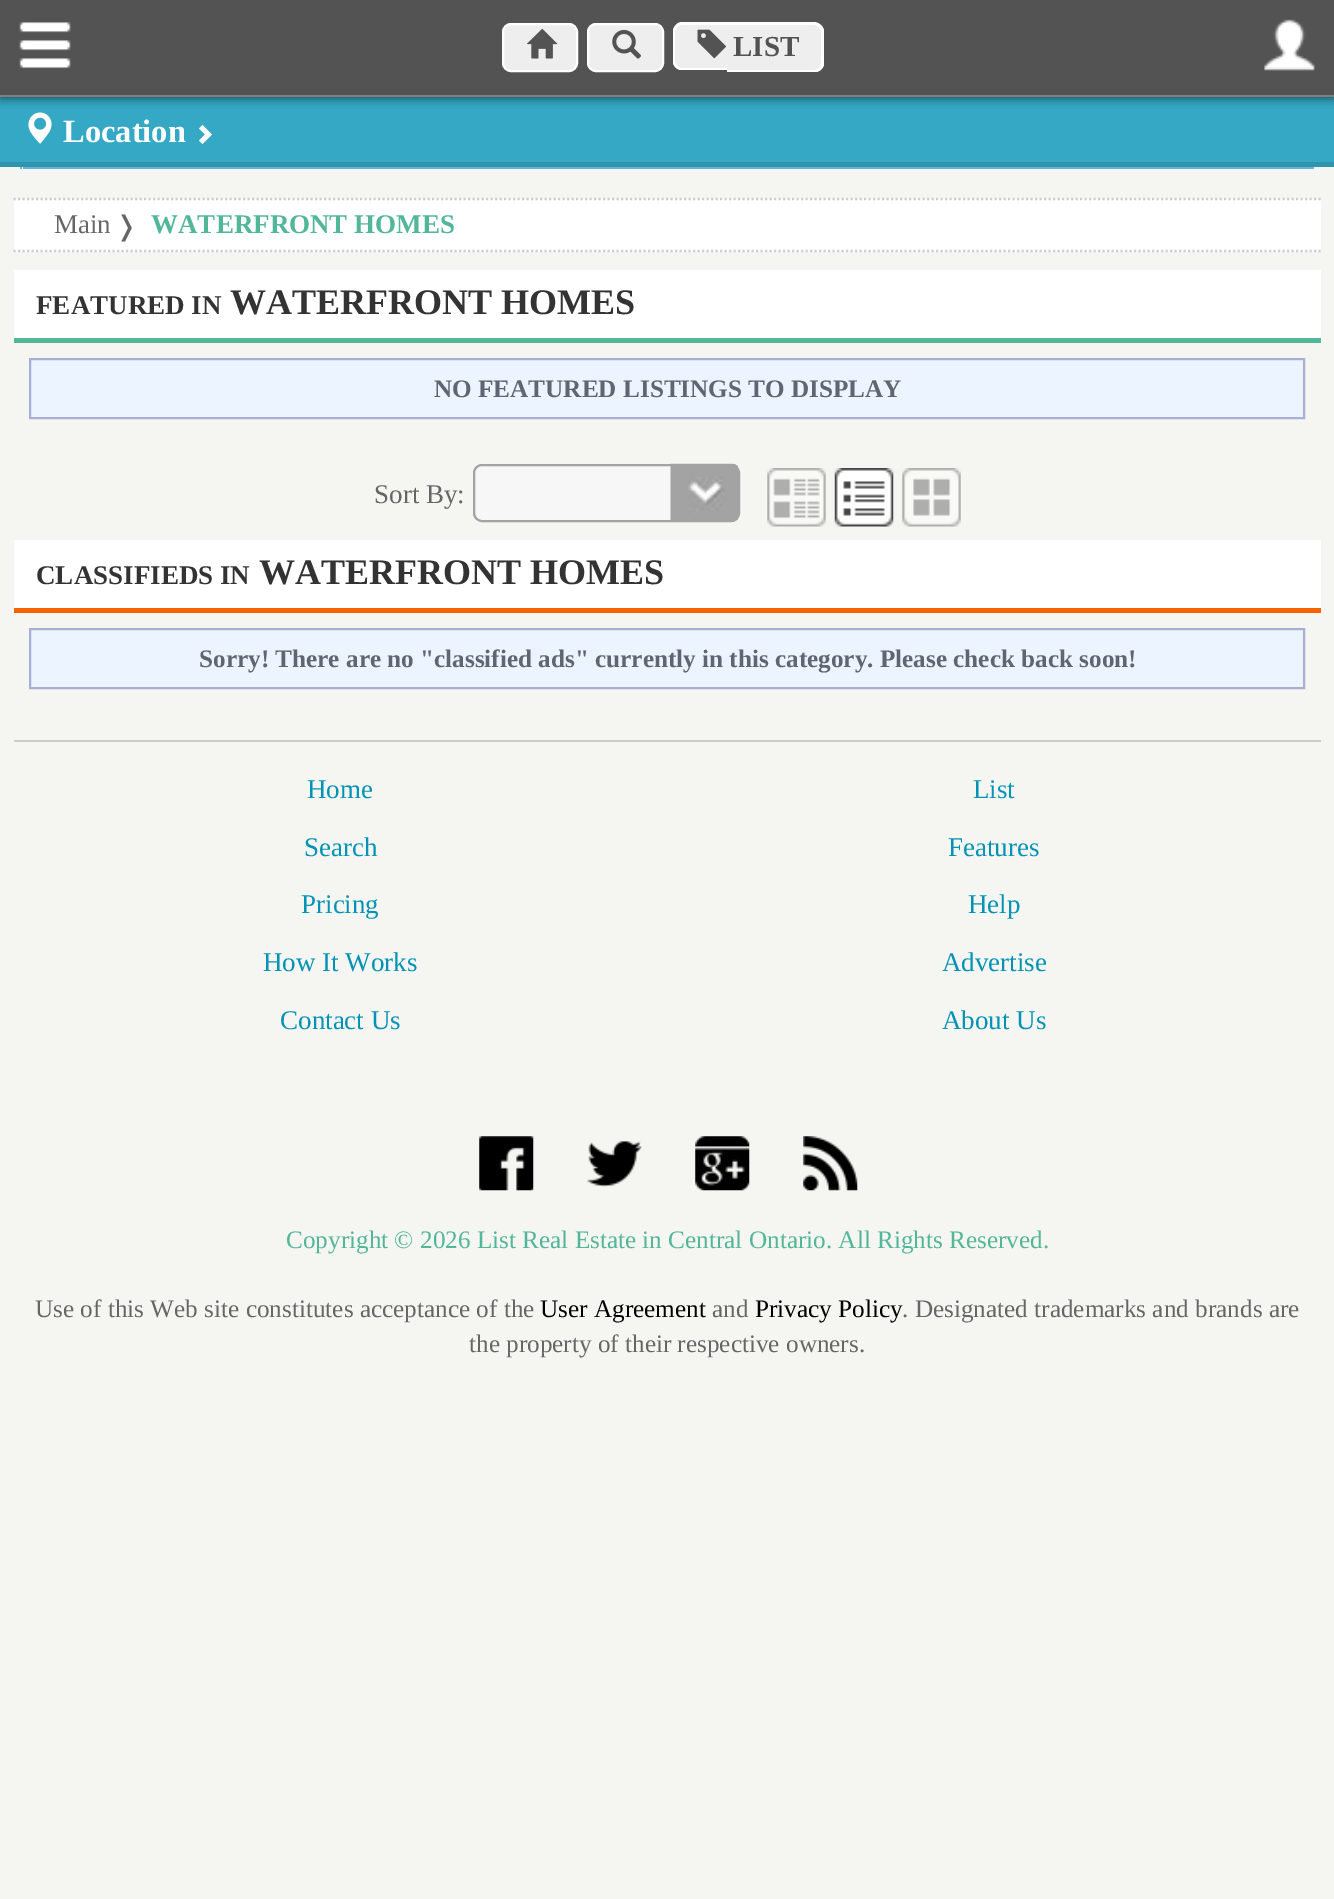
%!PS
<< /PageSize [1334 1899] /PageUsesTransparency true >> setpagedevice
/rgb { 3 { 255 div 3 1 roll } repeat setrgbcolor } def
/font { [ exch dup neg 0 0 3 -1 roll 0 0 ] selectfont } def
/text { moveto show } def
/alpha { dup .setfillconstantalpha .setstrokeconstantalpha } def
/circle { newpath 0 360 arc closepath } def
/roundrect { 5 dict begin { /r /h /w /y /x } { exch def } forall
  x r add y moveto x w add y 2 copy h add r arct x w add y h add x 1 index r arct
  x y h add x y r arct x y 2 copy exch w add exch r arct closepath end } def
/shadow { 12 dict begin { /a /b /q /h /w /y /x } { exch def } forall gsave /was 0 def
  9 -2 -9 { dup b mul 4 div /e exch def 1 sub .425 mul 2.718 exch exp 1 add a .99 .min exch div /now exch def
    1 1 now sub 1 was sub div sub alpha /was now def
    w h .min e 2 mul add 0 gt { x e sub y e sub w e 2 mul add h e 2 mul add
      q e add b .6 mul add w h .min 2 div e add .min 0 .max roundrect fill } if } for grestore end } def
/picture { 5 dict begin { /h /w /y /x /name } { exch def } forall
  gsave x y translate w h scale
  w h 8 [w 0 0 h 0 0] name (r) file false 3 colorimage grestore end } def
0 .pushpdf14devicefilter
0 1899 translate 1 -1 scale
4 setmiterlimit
245 245 241 rgb
0 0 1334 1899 rectfill
52 168 196 rgb
0 97 1334 65 rectfill
(img_06.rgb) 28 112 24 32 picture
0 0 0 rgb
0 2 1334 97 0 4.5 0.5 shadow
83 83 83 rgb
0 0 1334 95 rectfill
128 128 128 rgb
0 95 1334 2 rectfill
(img_01.rgb) 19 22 52 47 picture
238 238 238 rgb
503 24 74 47 8 roundrect gsave fill grestore
255 255 255 rgb
2 setlinewidth
stroke
(img_02.rgb) 526 29 32 30 picture
238 238 238 rgb
588 24 75 47 8 roundrect gsave fill grestore
255 255 255 rgb
stroke
(img_03.rgb) 612 29 29 30 picture
238 238 238 rgb
682 23 moveto 45 0 rlineto 0 47 rlineto -45 0 rlineto -5 0 -9 -4 -9 -9 rcurveto 0 -29 rlineto 0 -5 4 -9 9 -9 rcurveto closepath fill
255 255 255 rgb
682 22 moveto 45 0 rlineto 0 48 rlineto -45 0 rlineto -5 0 -9 -4 -9 -9 rcurveto 0 -29 rlineto 0 -5 4 -10 9 -10 rcurveto closepath 682 25 moveto 45 0 rlineto 0 43 rlineto -45 0 rlineto -4 0 -7 -4 -7 -7 rcurveto 0 -29 rlineto 0 -4 3 -7 7 -7 rcurveto closepath eofill
238 238 238 rgb
727 23 moveto 88 0 rlineto 5 0 9 4 9 9 rcurveto 0 31 rlineto 0 5 -4 9 -9 9 rcurveto -88 0 rlineto closepath fill
255 255 255 rgb
727 22 moveto 87 0 rlineto 5 0 10 5 10 10 rcurveto 0 31 rlineto 0 5 -5 9 -10 9 rcurveto -87 0 rlineto closepath 727 25 moveto 87 0 rlineto 4 0 7 3 7 7 rcurveto 0 31 rlineto 0 4 -3 7 -7 7 rcurveto -87 0 rlineto closepath eofill
(img_04.rgb) 697 29 29 30 picture
(img_05.rgb) 1264 19 51 52 picture
47 149 174 rgb
0 162 1334 5 rectfill
255 255 255 rgb
212 134.5 moveto -9.5 9.5 rlineto -3.5 -3.5 rlineto 6 -6 rlineto -6 -6 rlineto 3.5 -3.5 rlineto closepath fill
240 247 255 rgb
20 167 moveto 1294 0 rlineto 0 1 -1 2 -2 2 rcurveto -1290 0 rlineto -1 0 -2 -1 -2 -2 rcurveto closepath fill
100 179 218 rgb
23 167 1291 2 rectfill
21 168 1 circle fill
255 255 255 rgb
14 198 1307 54 rectfill
204 204 204 rgb
2.2 setlinewidth
[2.25 2.25] 0 setdash
13.5 199 moveto 1307.5 0 rlineto stroke
13.5 251 moveto 1307.5 0 rlineto stroke
255 255 255 rgb
14 270 1307 68 rectfill
82 182 154 rgb
14 338 1307 5 rectfill
236 244 255 rgb
30 359 moveto 1274 0 rlineto 0 59 rlineto -1274 0 rlineto closepath gsave fill grestore
169 175 212 rgb
2 setlinewidth
[] 0 setdash
stroke
247 247 247 rgb
473 464 267 58 9 roundrect fill
(img_07.rgb) 670 463 68 59 picture
163 163 163 rgb
474 465 265 56 8 roundrect stroke
(img_08.rgb) 767 468 59 59 picture
(img_09.rgb) 834 468 60 59 picture
(img_10.rgb) 902 468 59 59 picture
255 255 255 rgb
14 540 1307 68 rectfill
246 99 3 rgb
14 608 1307 5 rectfill
236 244 255 rgb
30 629 moveto 1274 0 rlineto 0 59 rlineto -1274 0 rlineto closepath gsave fill grestore
169 175 212 rgb
stroke
204 204 204 rgb
14 740 1307 2 rectfill
(img_11.rgb) 479 1136 55 55 picture
(img_12.rgb) 587 1141 55 46 picture
(img_13.rgb) 695 1136 55 55 picture
(img_14.rgb) 803 1136 55 55 picture
/LiberationSerif-Bold 29 font
83 83 83 rgb
(LIST) 733 56 text
/LiberationSerif-Bold 32.5 font
255 255 255 rgb
(Location) 63 142 text
/LiberationSerif-Regular 27 font
102 102 102 rgb
(Main) 54 233 text
/DejaVuSans-Regular 27 font
(❭) 115 235 text
/LiberationSerif-Bold 27 font
82 182 154 rgb
(WATERFRONT HOMES) 151 233 text
51 51 51 rgb
(FEATURED IN) 36 314 text
/LiberationSerif-Bold 36 font
(WATERFRONT HOMES) 230 314 text
/LiberationSerif-Bold 25.2 font
95 102 114 rgb
(NO FEATURED LISTINGS TO DISPLAY) 434 397 text
/LiberationSerif-Regular 27 font
102 102 102 rgb
(Sort By:) 374 503 text
/LiberationSerif-Bold 27 font
51 51 51 rgb
(CLASSIFIEDS IN) 36 584 text
/LiberationSerif-Bold 36 font
(WATERFRONT HOMES) 259 584 text
/LiberationSerif-Bold 25.2 font
95 102 114 rgb
(Sorry! There are no "classified ads" currently in this category. Please check back soon!) 199 667 text
/LiberationSerif-Regular 27 font
1 146 181 rgb
(Home) 307 798 text
(List) 973 798 text
(Search) 304 856 text
(Features) 948 856 text
(Pricing) 301 913 text
(Help) 968 913 text
(How It Works) 263 971 text
(Advertise) 942 971 text
(Contact Us) 280 1029 text
(About Us) 942 1029 text
/LiberationSerif-Regular 25.2 font
82 182 154 rgb
(Copyright © 2026 List Real Estate in Central Ontario. All Rights Reserved.) 286 1248 text
102 102 102 rgb
(Use of this Web site constitutes acceptance of the) 35 1317 text
0 0 0 rgb
(User Agreement) 540 1317 text
102 102 102 rgb
(and) 712 1317 text
0 0 0 rgb
(Privacy Policy) 755 1317 text
102 102 102 rgb
(. Designated trademarks and brands are) 902 1317 text
(the property of their respective owners.) 469 1352 text
.poppdf14devicefilter showpage
